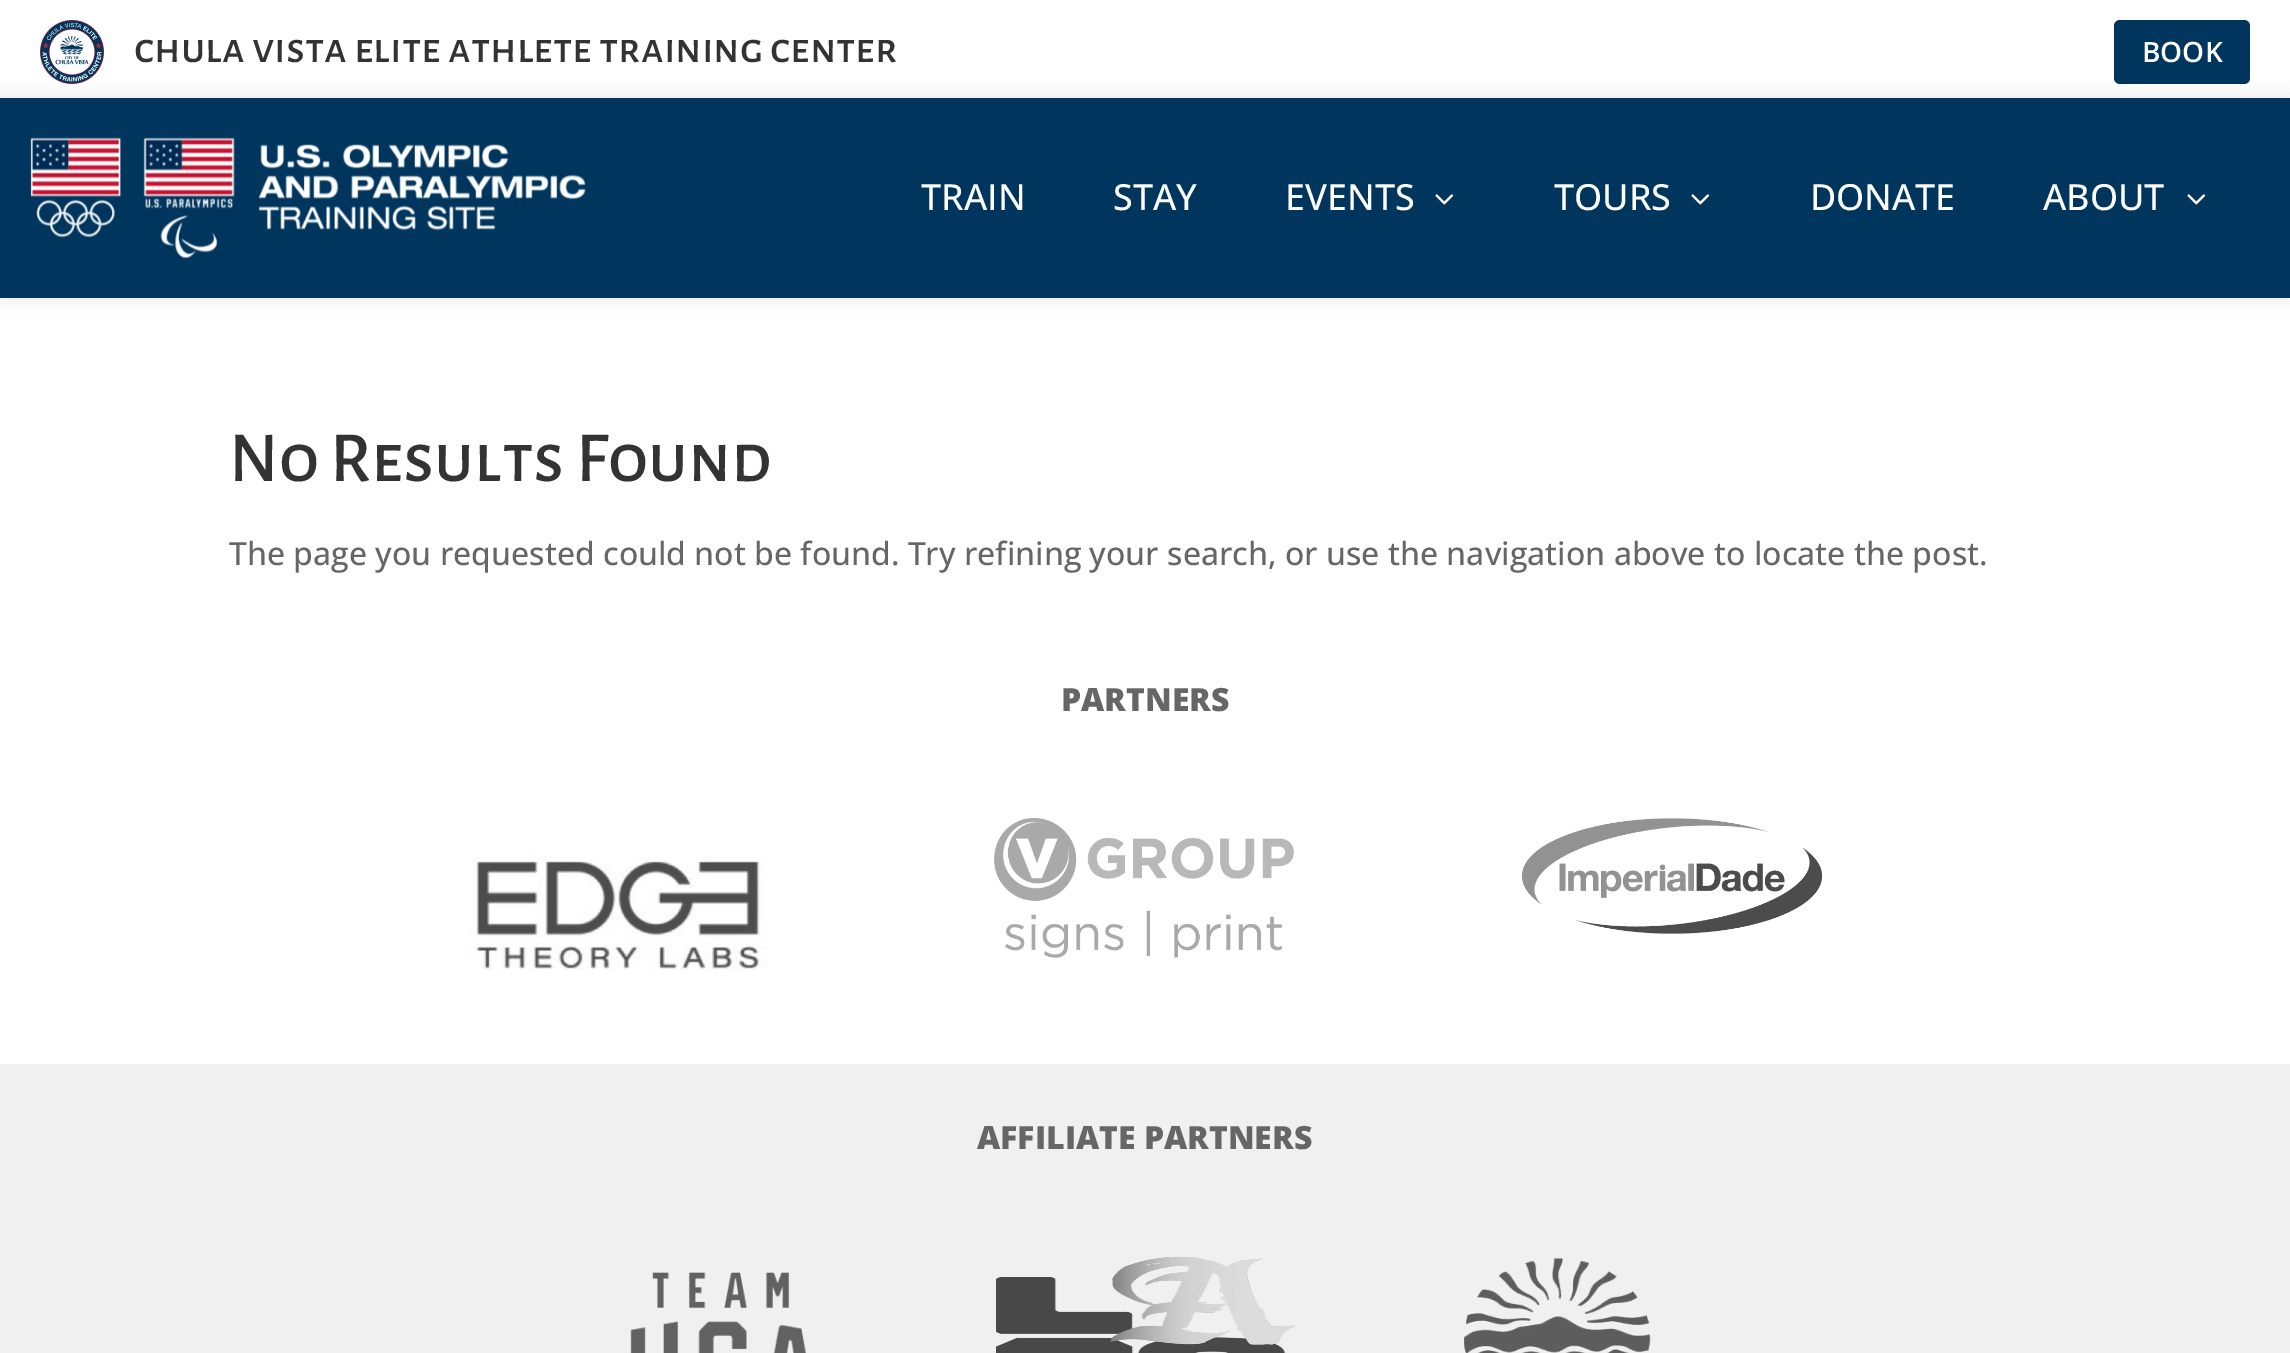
%!PS
<< /PageSize [2290 1353] /PageUsesTransparency true >> setpagedevice
/rgb { 3 { 255 div 3 1 roll } repeat setrgbcolor } def
/font { [ exch dup neg 0 0 3 -1 roll 0 0 ] selectfont } def
/text { moveto show } def
/alpha { dup .setfillconstantalpha .setstrokeconstantalpha } def
/roundrect { 5 dict begin { /r /h /w /y /x } { exch def } forall
  x r add y moveto x w add y 2 copy h add r arct x w add y h add x 1 index r arct
  x y h add x y r arct x y 2 copy exch w add exch r arct closepath end } def
/shadow { 12 dict begin { /a /b /q /h /w /y /x } { exch def } forall gsave /was 0 def
  9 -2 -9 { dup b mul 4 div /e exch def 1 sub .425 mul 2.718 exch exp 1 add a .99 .min exch div /now exch def
    1 1 now sub 1 was sub div sub alpha /was now def
    w h .min e 2 mul add 0 gt { x e sub y e sub w e 2 mul add h e 2 mul add
      q e add b .6 mul add w h .min 2 div e add .min 0 .max roundrect fill } if } for grestore end } def
/picture { 5 dict begin { /h /w /y /x /name } { exch def } forall
  gsave x y translate w h scale
  w h 8 [w 0 0 h 0 0] name (r) file false 3 colorimage grestore end } def
0 .pushpdf14devicefilter
0 1353 translate 1 -1 scale
4 setmiterlimit
255 255 255 rgb
0 0 2290 1353 rectfill
(img_01.rgb) 40 20 64 64 picture
0 53 93 rgb
2114 20 136 64 6 roundrect fill
0 98 2290 200 rectfill
gsave
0 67 moveto 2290 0 rlineto 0 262 rlineto -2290 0 rlineto closepath 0 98 moveto 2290 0 rlineto 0 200 rlineto -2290 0 rlineto closepath eoclip newpath
0 0 0 rgb
0 98 2290 200 0 10 0.1 shadow
grestore
(img_02.rgb) 30 137 556 121 picture
(img_03.rgb) 1435 194 19 11 picture
(img_03.rgb) 1691 194 19 11 picture
(img_03.rgb) 2187 194 19 11 picture
(img_04.rgb) 468 855 300 116 picture
(img_05.rgb) 994 818 300 140 picture
(img_06.rgb) 1522 818 300 116 picture
240 240 240 rgb
0 1064 2290 289 rectfill
(img_07.rgb) 630 1272 177 81 picture
(img_08.rgb) 996 1256 299 97 picture
(img_09.rgb) 1463 1258 188 95 picture
/AlegreyaSansSC-Medium 44 font
51 51 51 rgb
(chula vista elite athlete training center) 134 62 text
/OpenSans-SemiBold 28 font
255 255 255 rgb
(BOOK) 2142 62 text
/OpenSans-Medium 36 font
(TRAIN) 921 210 text
(STAY) 1113 210 text
(EVENTS) 1285 210 text
(TOURS) 1554 210 text
(DONATE) 1810 210 text
(ABOUT) 2043 210 text
/AlegreyaSansSC-Medium 72 font
51 51 51 rgb
(No Results Found) 229 481 text
/OpenSans-Medium 32 font
102 102 102 rgb
(The page you requested could not be found. Try refining your search, or use the navigation above to locate the post.) 229 565 text
/OpenSans-ExtraBold 32 font
(PARTNERS) 1061 711 text
(AFFILIATE PARTNERS) 977 1149 text
.poppdf14devicefilter showpage
